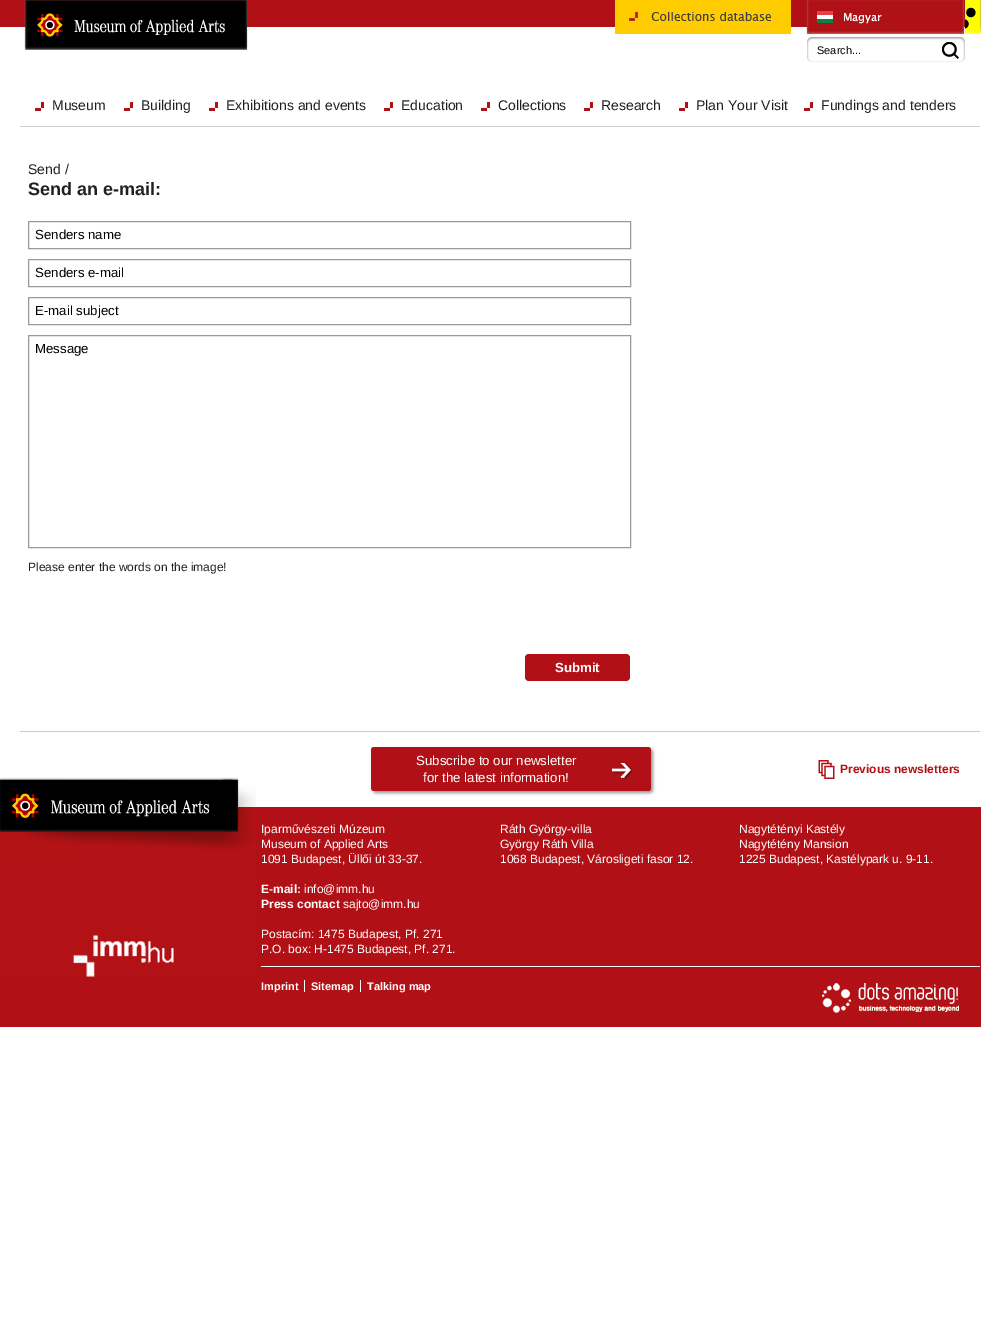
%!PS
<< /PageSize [981 1334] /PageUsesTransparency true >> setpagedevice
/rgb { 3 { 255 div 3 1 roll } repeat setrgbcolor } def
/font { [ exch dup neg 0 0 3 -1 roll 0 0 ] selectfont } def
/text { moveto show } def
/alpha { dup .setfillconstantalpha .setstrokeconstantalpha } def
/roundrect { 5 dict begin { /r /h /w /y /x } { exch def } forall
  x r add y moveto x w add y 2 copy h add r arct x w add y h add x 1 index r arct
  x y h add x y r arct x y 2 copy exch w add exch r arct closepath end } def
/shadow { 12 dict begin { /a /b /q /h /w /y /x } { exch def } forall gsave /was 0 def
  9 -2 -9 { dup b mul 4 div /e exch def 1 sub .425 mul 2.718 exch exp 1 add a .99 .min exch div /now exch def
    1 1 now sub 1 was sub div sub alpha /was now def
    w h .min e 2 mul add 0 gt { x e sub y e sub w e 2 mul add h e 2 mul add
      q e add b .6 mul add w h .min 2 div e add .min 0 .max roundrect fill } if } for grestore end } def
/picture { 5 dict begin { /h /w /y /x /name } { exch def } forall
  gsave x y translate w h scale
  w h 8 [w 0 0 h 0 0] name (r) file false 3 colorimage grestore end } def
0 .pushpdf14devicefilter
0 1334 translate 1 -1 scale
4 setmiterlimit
255 255 255 rgb
0 0 981 1334 rectfill
177 17 22 rgb
0 0 806 27 rectfill
(img_01.rgb) 965 0 16 34 picture
(img_02.rgb) 24 0 224 50 picture
(img_03.rgb) 615 0 176 34 picture
(img_04.rgb) 806 0 159 34 picture
(img_05.rgb) 807 37 128 25 picture
(img_06.rgb) 935 37 30 25 picture
209 209 209 rgb
20 126 960 1 rectfill
(img_07.rgb) 35 102 9 9 picture
(img_07.rgb) 124 102 9 9 picture
(img_07.rgb) 209 102 9 9 picture
(img_07.rgb) 384 102 9 9 picture
(img_07.rgb) 481 102 9 9 picture
(img_07.rgb) 584 102 9 9 picture
(img_07.rgb) 679 102 9 9 picture
(img_07.rgb) 804 102 9 9 picture
204 204 204 rgb
20 731 960 1 rectfill
153 153 153 rgb
28.5 221.5 602 27 rectstroke
28.5 259.5 602 27 rectstroke
28.5 297.5 602 27 rectstroke
28.5 335.5 602 212 rectstroke
177 17 22 rgb
525 654 105 27 4 roundrect fill
0 972 981 55 rectfill
(img_08.rgb) 0 777 257 200 picture
255 255 255 rgb
256 793 1 14 rectfill
0 0 0 rgb
373 749 280 44 3 1.5 0.4 shadow
177 17 22 rgb
371 747 280 44 3 roundrect fill
(img_09.rgb) 611 762 21 17 picture
(img_10.rgb) 818 760 17 19 picture
256 807 725 165 rectfill
255 255 255 rgb
261 966 719 1 rectfill
304 980 1 12 rectfill
360 980 1 12 rectfill
(img_11.rgb) 822 983 137 30 picture
/LiberationSans-Regular 11 font
0 0 0 rgb
(Search...) 817 54 text
/LiberationSans-Regular 14 font
32 32 32 rgb
(Museum) 52 110 text
(Building) 141 110 text
(Exhibitions and events) 226 110 text
(Education) 401 110 text
(Collections) 498 110 text
(Research) 601 110 text
(Plan Your Visit) 696 110 text
(Fundings and tenders) 821 110 text
(Send /) 28 174 text
/LiberationSans-Bold 18 font
(Send an e-mail:) 28 195 text
/LiberationSans-Regular 13.25 font
0 0 0 rgb
(Senders name) 35 239 text
(Senders e-mail) 35 277 text
(E-mail subject) 35 315 text
(Message) 35 353 text
/LiberationSans-Regular 12 font
32 32 32 rgb
(Please enter the words on the image!) 28 571 text
/LiberationSans-Bold 13.25 font
255 255 255 rgb
(Submit) 555 672 text
/LiberationSans-Regular 13.25 font
(Subscribe to our newsletter) 416 765 text
(for the latest information!) 423 782 text
/LiberationSans-Bold 12 font
177 17 22 rgb
(Previous newsletters) 840 773 text
/LiberationSans-Regular 12 font
255 255 255 rgb
(Iparművészeti Múzeum) 261 833 text
(Museum of Applied Arts) 261 848 text
(1091 Budapest, Üllői út 33-37.) 261 863 text
/LiberationSans-Bold 12 font
(E-mail:) 261 893 text
/LiberationSans-Regular 12 font
(info@imm.hu) 304 893 text
/LiberationSans-Bold 12 font
(Press contact) 261 908 text
/LiberationSans-Regular 12 font
(sajto@imm.hu) 343 908 text
(Postacím: 1475 Budapest, Pf. 271) 261 938 text
(P.O. box: H-1475 Budapest, Pf. 271.) 261 953 text
(Ráth György-villa) 500 833 text
(György Ráth Villa) 500 848 text
(1068 Budapest, Városligeti fasor 12.) 500 863 text
(Nagytétényi Kastély) 739 833 text
(Nagytétény Mansion) 739 848 text
(1225 Budapest, Kastélypark u. 9-11.) 739 863 text
/LiberationSans-Bold 11 font
(Imprint) 261 990 text
(Sitemap) 311 990 text
(Talking map) 367 990 text
.poppdf14devicefilter showpage
